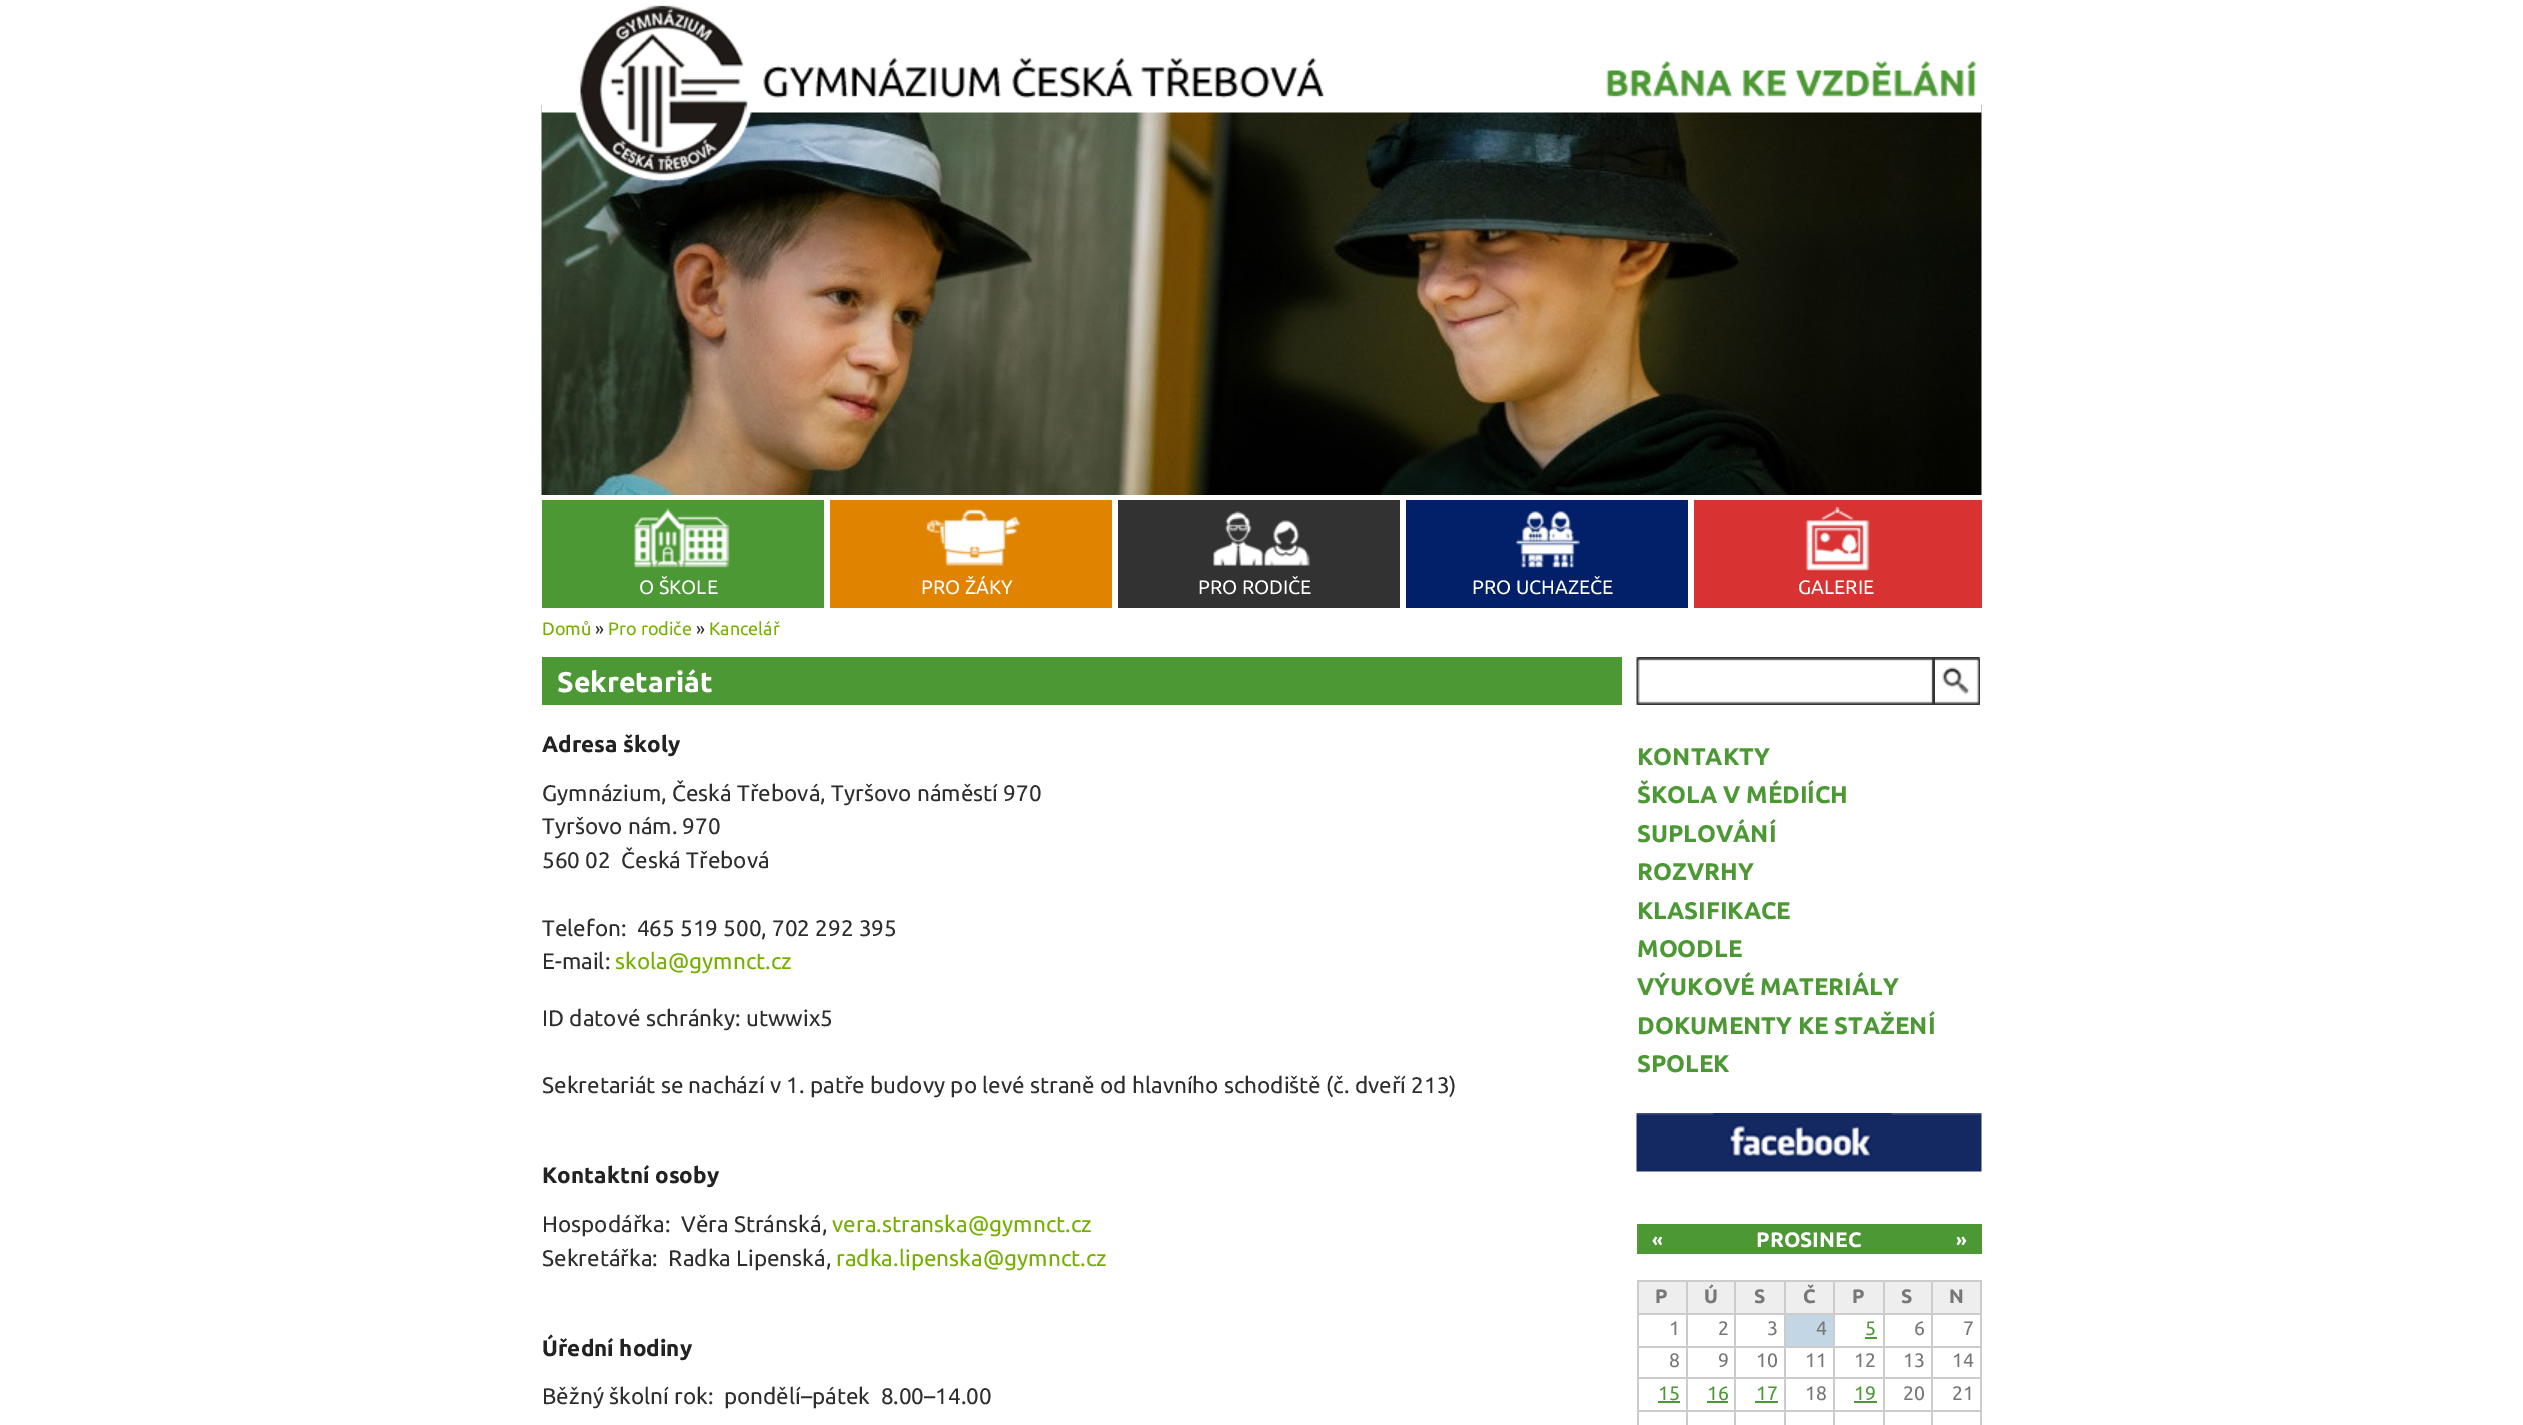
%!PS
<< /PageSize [2523 1425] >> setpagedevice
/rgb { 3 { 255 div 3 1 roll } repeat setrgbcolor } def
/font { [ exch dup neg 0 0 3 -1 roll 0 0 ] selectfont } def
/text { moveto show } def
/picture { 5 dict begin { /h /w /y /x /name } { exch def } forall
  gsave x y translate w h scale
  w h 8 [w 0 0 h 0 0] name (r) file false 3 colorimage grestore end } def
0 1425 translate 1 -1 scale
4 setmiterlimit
255 255 255 rgb
0 0 2523 1425 rectfill
(img_02.rgb) 541 105 1441 390 picture
(img_01.rgb) 541 5 1441 177 picture
75 152 52 rgb
542 500 282 108 rectfill
(img_03.rgb) 634 508 96 60 picture
224 131 0 rgb
830 500 282 108 rectfill
(img_04.rgb) 926 509 95 57 picture
50 50 50 rgb
1118 500 282 108 rectfill
(img_05.rgb) 1213 511 97 55 picture
2 32 105 rgb
1406 500 282 108 rectfill
(img_06.rgb) 1516 511 64 57 picture
216 50 50 rgb
1694 500 288 108 rectfill
(img_07.rgb) 1805 506 65 65 picture
75 152 52 rgb
542 657 1080 48 rectfill
(img_08.rgb) 1636 657 299 48 picture
(img_09.rgb) 1935 657 45 48 picture
(img_10.rgb) 1636 1113 346 59 picture
1637 1224 345 30 rectfill
238 238 238 rgb
1639 1282 47 31 rectfill
204 204 204 rgb
1931 1280 51 2 rectfill
1931 1313 51 2 rectfill
1931 1346 51 2 rectfill
1931 1377 51 2 rectfill
1931 1410 51 2 rectfill
1931 1410 2 15 rectfill
1883 1410 49 2 rectfill
1931 1377 2 35 rectfill
1883 1377 49 2 rectfill
1931 1346 2 33 rectfill
1883 1346 49 2 rectfill
1931 1313 2 34 rectfill
1883 1313 49 2 rectfill
1931 1280 2 34 rectfill
1883 1280 49 2 rectfill
1883 1410 2 15 rectfill
1833 1410 51 2 rectfill
1883 1377 2 35 rectfill
1833 1377 51 2 rectfill
1883 1346 2 33 rectfill
1833 1346 51 2 rectfill
1883 1313 2 34 rectfill
1833 1313 51 2 rectfill
1883 1280 2 34 rectfill
1833 1280 51 2 rectfill
1833 1410 2 15 rectfill
1784 1410 51 2 rectfill
1833 1377 2 35 rectfill
1784 1377 51 2 rectfill
1833 1346 2 33 rectfill
1784 1346 51 2 rectfill
1833 1313 2 34 rectfill
1784 1313 51 2 rectfill
1833 1280 2 34 rectfill
1784 1280 51 2 rectfill
1784 1410 2 15 rectfill
1734 1410 51 2 rectfill
1784 1377 2 35 rectfill
1734 1377 51 2 rectfill
1784 1346 2 33 rectfill
1734 1346 51 2 rectfill
1784 1313 2 34 rectfill
1734 1313 51 2 rectfill
1784 1280 2 34 rectfill
1734 1280 51 2 rectfill
1734 1410 2 15 rectfill
1686 1410 50 2 rectfill
1734 1377 2 35 rectfill
1686 1377 50 2 rectfill
1734 1346 2 33 rectfill
1686 1346 50 2 rectfill
1734 1313 2 34 rectfill
1686 1313 50 2 rectfill
1734 1280 2 34 rectfill
1686 1280 50 2 rectfill
1686 1410 2 15 rectfill
1637 1410 51 2 rectfill
1686 1377 2 35 rectfill
1637 1377 51 2 rectfill
1686 1346 2 33 rectfill
1637 1346 51 2 rectfill
1686 1313 2 34 rectfill
1637 1313 51 2 rectfill
1686 1280 2 34 rectfill
1637 1280 51 2 rectfill
1637 1410 2 15 rectfill
1637 1377 2 35 rectfill
1637 1346 2 33 rectfill
1637 1313 2 34 rectfill
1637 1280 2 34 rectfill
238 238 238 rgb
1688 1282 46 31 rectfill
1736 1282 48 31 rectfill
1786 1282 47 31 rectfill
1835 1282 48 31 rectfill
1885 1282 46 31 rectfill
1933 1282 47 31 rectfill
204 204 204 rgb
1980 1410 2 15 rectfill
1980 1377 2 35 rectfill
1980 1346 2 33 rectfill
1980 1313 2 34 rectfill
1980 1280 2 34 rectfill
195 214 228 rgb
1786 1315 47 31 rectfill
75 152 52 rgb
1865 1337 12 2 rectfill
1658 1401 22 2 rectfill
1707 1401 21 2 rectfill
1755 1401 23 2 rectfill
1854 1401 23 2 rectfill
/Ubuntu-Regular 19.5 font
255 255 255 rgb
(O ŠKOLE) 639 594 text
(PRO ŽÁKY) 921 594 text
(PRO RODIČE) 1198 594 text
(PRO UCHAZEČE) 1472 594 text
(GALERIE) 1798 594 text
/Ubuntu-Regular 18 font
117 176 0 rgb
(Domů) 542 635 text
46 46 46 rgb
(») 595 635 text
117 176 0 rgb
(Pro rodiče) 608 635 text
46 46 46 rgb
(») 696 635 text
117 176 0 rgb
(Kancelář) 709 635 text
/Ubuntu-Bold 28.5 font
255 255 255 rgb
(Sekretariát) 557 692 text
/Ubuntu-Bold 22.5 font
34 34 34 rgb
(Adresa školy) 542 752 text
/Ubuntu-Regular 22.5 font
46 46 46 rgb
(Gymnázium, Česká Třebová, Tyršovo náměstí 970) 542 801 text
(Tyršovo nám. 970) 542 834 text
(560 02  Česká Třebová) 542 868 text
(Telefon:  465 519 500, 702 292 395) 542 936 text
(E-mail:) 542 969 text
117 176 0 rgb
(skola@gymnct.cz) 615 969 text
46 46 46 rgb
(ID datové schránky: utwwix5) 542 1026 text
(Sekretariát se nachází v 1. patře budovy po levé straně od hlavního schodiště \(č. dveří 213\)) 542 1093 text
/Ubuntu-Bold 22.5 font
34 34 34 rgb
(Kontaktní osoby) 542 1183 text
/Ubuntu-Regular 22.5 font
46 46 46 rgb
(Hospodářka:  Věra Stránská,) 542 1232 text
117 176 0 rgb
(vera.stranska@gymnct.cz) 832 1232 text
46 46 46 rgb
(Sekretářka:  Radka Lipenská,) 542 1266 text
117 176 0 rgb
(radka.lipenska@gymnct.cz) 836 1266 text
/Ubuntu-Bold 22.5 font
34 34 34 rgb
(Úřední hodiny) 542 1356 text
/Ubuntu-Regular 22.5 font
46 46 46 rgb
(Běžný školní rok:  pondělí–pátek  8.00–14.00) 542 1404 text
/Ubuntu-Bold 24 font
75 152 52 rgb
(KONTAKTY) 1637 765 text
(ŠKOLA V MÉDIÍCH) 1637 803 text
(SUPLOVÁNÍ) 1637 842 text
(ROZVRHY) 1637 880 text
(KLASIFIKACE) 1637 919 text
(MOODLE) 1637 957 text
(VÝUKOVÉ MATERIÁLY) 1637 995 text
(DOKUMENTY KE STAŽENÍ) 1637 1034 text
(SPOLEK) 1637 1072 text
/Ubuntu-Bold 21 font
255 255 255 rgb
(PROSINEC) 1756 1247 text
/Ubuntu-Bold 18 font
(«) 1652 1246 text
(») 1956 1246 text
/Ubuntu-Bold 19.5 font
119 119 119 rgb
(P) 1655 1303 text
(Ú) 1704 1303 text
(S) 1754 1303 text
(Č) 1803 1303 text
(P) 1852 1303 text
(S) 1901 1303 text
(N) 1949 1303 text
/Ubuntu-Regular 19.5 font
(1) 1669 1335 text
(2) 1718 1335 text
(3) 1767 1335 text
(4) 1816 1335 text
75 152 52 rgb
(5) 1865 1335 text
119 119 119 rgb
(6) 1914 1335 text
(7) 1963 1335 text
(8) 1669 1367 text
(9) 1718 1367 text
(10) 1756 1367 text
(11) 1805 1367 text
(12) 1854 1367 text
(13) 1903 1367 text
(14) 1952 1367 text
75 152 52 rgb
(15) 1658 1400 text
(16) 1707 1400 text
(17) 1756 1400 text
119 119 119 rgb
(18) 1805 1400 text
75 152 52 rgb
(19) 1854 1400 text
119 119 119 rgb
(20) 1903 1400 text
(21) 1952 1400 text
showpage
